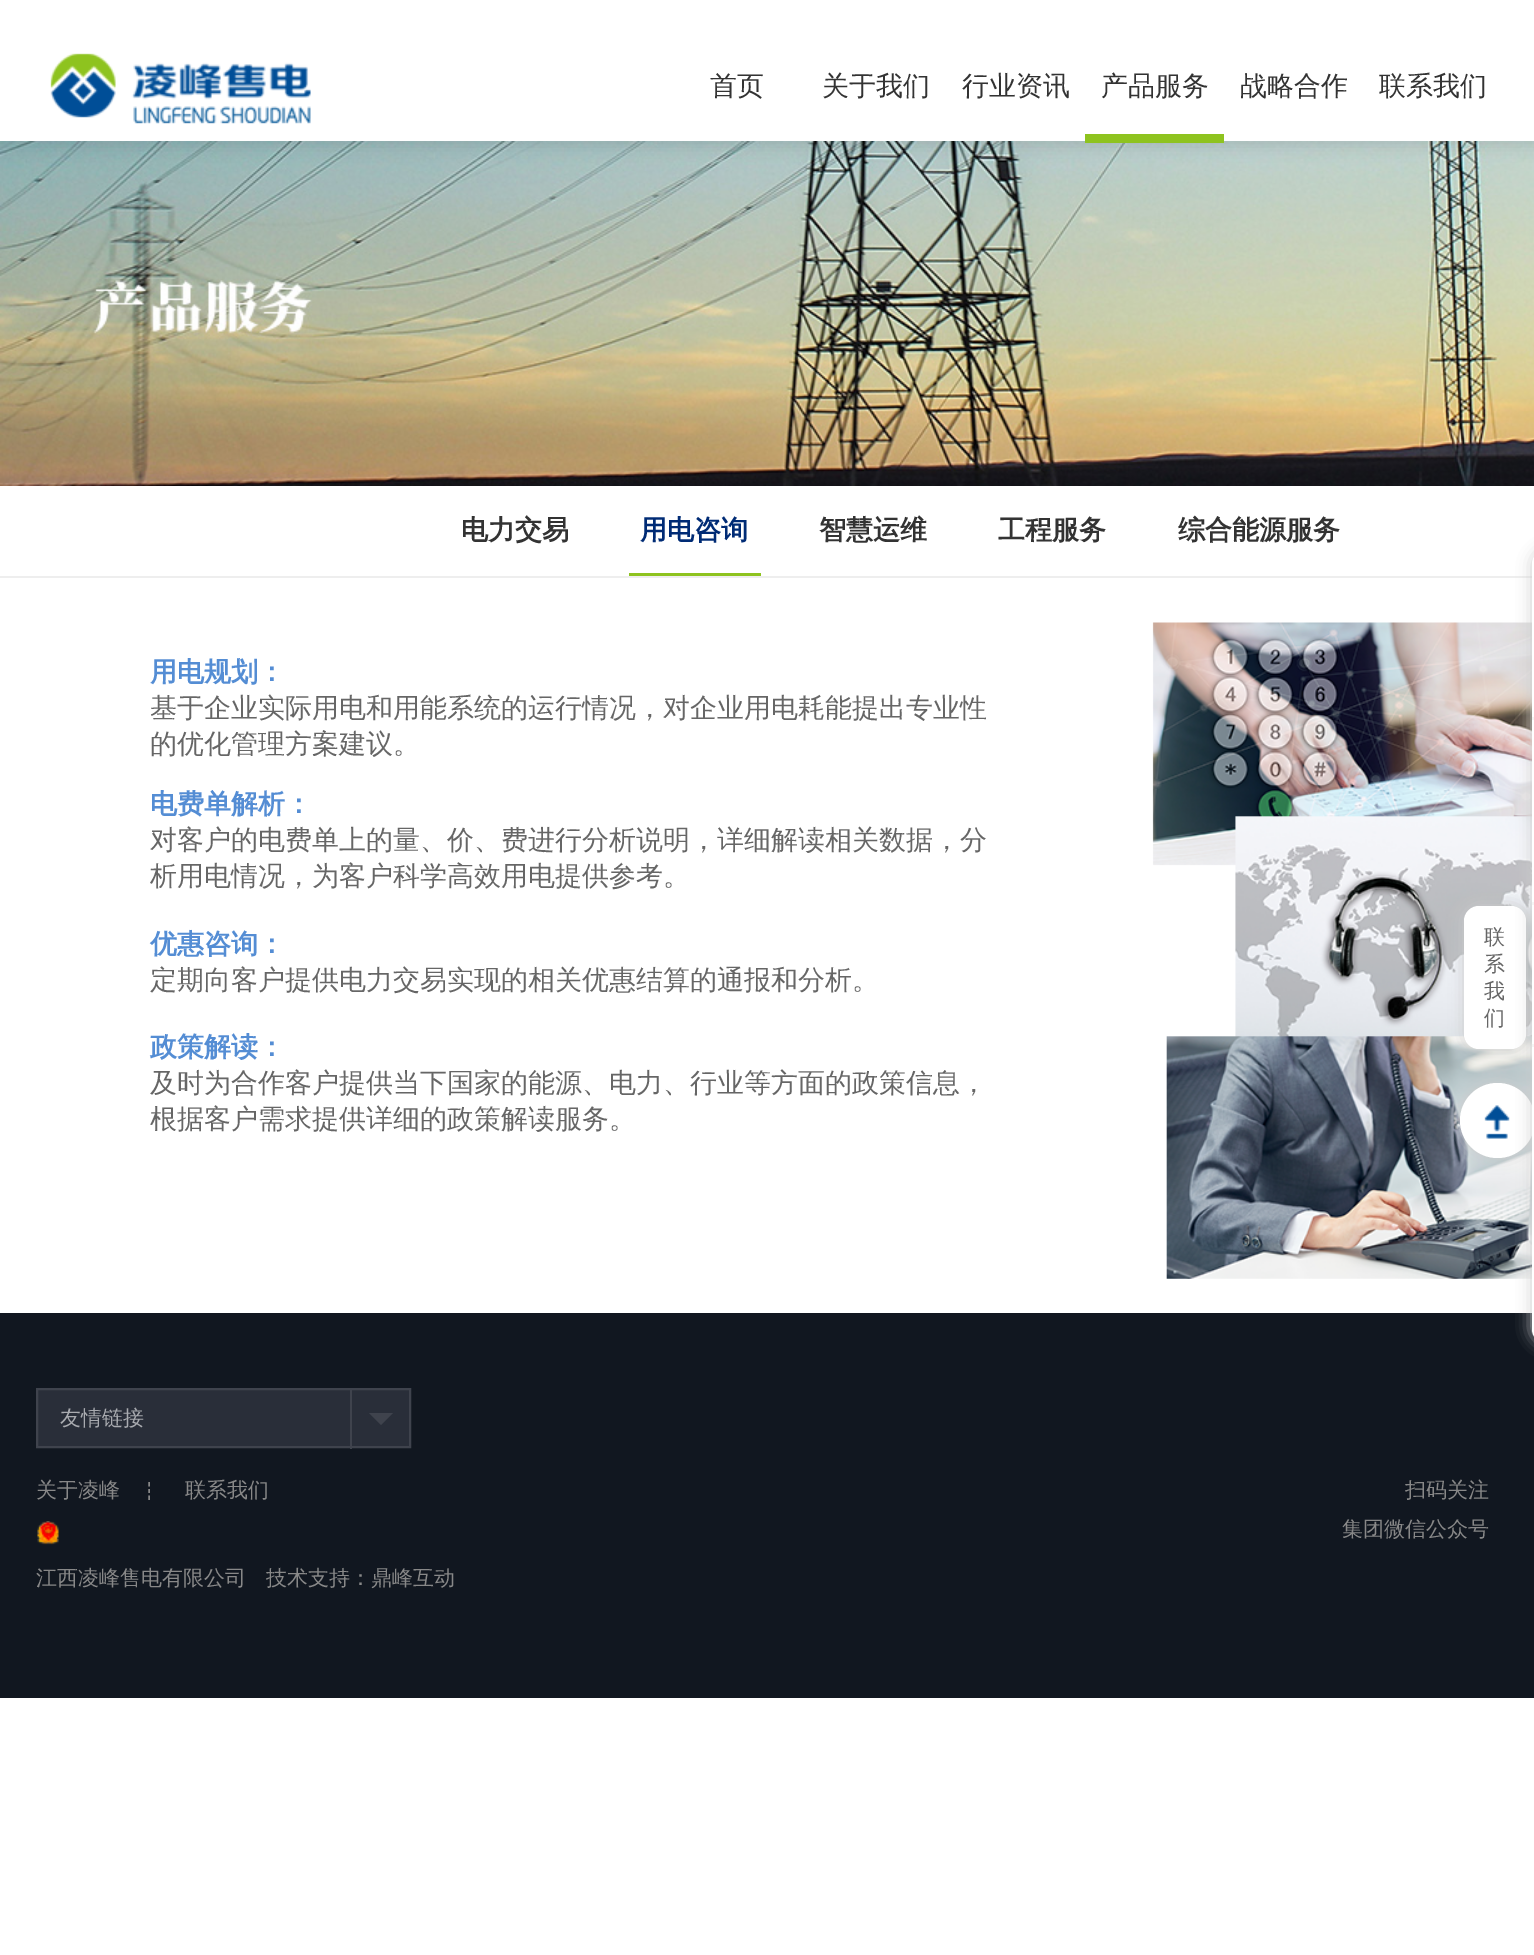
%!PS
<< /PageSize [1534 1955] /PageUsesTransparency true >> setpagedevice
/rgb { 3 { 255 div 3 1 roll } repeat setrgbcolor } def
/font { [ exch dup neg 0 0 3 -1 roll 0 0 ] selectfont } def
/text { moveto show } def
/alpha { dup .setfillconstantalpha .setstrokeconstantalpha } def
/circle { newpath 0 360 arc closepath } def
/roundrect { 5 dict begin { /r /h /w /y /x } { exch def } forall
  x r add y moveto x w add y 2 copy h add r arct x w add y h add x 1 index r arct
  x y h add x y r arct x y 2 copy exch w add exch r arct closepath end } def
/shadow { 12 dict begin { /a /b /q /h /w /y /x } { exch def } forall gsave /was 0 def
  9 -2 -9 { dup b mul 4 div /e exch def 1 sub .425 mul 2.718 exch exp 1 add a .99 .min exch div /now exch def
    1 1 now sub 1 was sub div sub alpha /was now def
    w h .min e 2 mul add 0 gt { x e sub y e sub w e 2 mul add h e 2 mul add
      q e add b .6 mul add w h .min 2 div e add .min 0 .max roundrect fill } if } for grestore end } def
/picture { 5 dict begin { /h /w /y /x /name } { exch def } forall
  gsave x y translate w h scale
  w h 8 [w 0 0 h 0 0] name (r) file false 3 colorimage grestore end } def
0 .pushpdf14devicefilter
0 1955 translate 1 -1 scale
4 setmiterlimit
255 255 255 rgb
0 0 1534 1955 rectfill
(img_02.rgb) 0 141 1534 345 picture
0 0 0 rgb
-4 -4 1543 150 0 7.5 0.1 shadow
255 255 255 rgb
0 0 1534 141 rectfill
(img_01.rgb) 50 53 261 71 picture
142 195 31 rgb
1085 134 139 9 rectfill
238 238 238 rgb
0 576 1534 2 rectfill
142 195 31 rgb
629 573 132 3 rectfill
(img_03.rgb) 1152 622 380 657 picture
204 204 204 rgb
1464 906 62 143 15 7.5 1 shadow
255 255 255 rgb
1464 906 62 143 15 roundrect fill
204 204 204 rgb
1460 1083 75 75 37.5 7.5 1 shadow
255 255 255 rgb
1497.5 1120.5 37.5 circle fill
(img_04.rgb) 1484 1105 26 34 picture
17 23 32 rgb
0 1313 1534 385 rectfill
204 204 204 rgb
1532 549 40 795 15 7.5 1 shadow
255 255 255 rgb
1532 549 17 795 15 roundrect fill
245 245 245 rgb
1532 717 2 3 rectfill
1532 902 2 3 rectfill
1532 1044 2 3 rectfill
41 46 57 rgb
37 1389 moveto 373 0 rlineto 0 58 rlineto -373 0 rlineto closepath gsave fill grestore
63 67 77 rgb
2 setlinewidth
stroke
350 1389 2 60 rectfill
369 1413 moveto 24 0 rlineto -12 12 rlineto closepath fill
136 136 136 rgb
1.5 setlinewidth
149 1482 moveto 0 4.5 rlineto 149 1489 moveto 0 4 rlineto 149 1495.5 moveto 0 4.5 rlineto stroke
(img_05.rgb) 37 1521 22 24 picture
/WenQuanYiZenHei-Medium 27 font
51 51 51 rgb
(首页) 710 95 text
(关于我们) 822 95 text
(行业资讯) 962 95 text
(产品服务) 1101 95 text
(战略合作) 1240 95 text
(联系我们) 1379 95 text
/WenQuanYiZenHei-Bold 27 font
(电力交易) 461 539 text
0 43 117 rgb
(用电咨询) 640 539 text
51 51 51 rgb
(智慧运维) 819 539 text
(工程服务) 998 539 text
(综合能源服务) 1178 539 text
84 141 212 rgb
(用电规划：) 150 681 text
/WenQuanYiZenHei-Medium 27 font
102 102 102 rgb
(基于企业实际用电和用能系统的运行情况，对企业用电耗能提出专业性) 150 717 text
(的优化管理方案建议。) 150 753 text
/WenQuanYiZenHei-Bold 27 font
84 141 212 rgb
(电费单解析：) 150 813 text
/WenQuanYiZenHei-Medium 27 font
102 102 102 rgb
(对客户的电费单上的量、价、费进行分析说明，详细解读相关数据，分) 150 849 text
(析用电情况，为客户科学高效用电提供参考。) 150 885 text
/WenQuanYiZenHei-Bold 27 font
84 141 212 rgb
(优惠咨询：) 150 953 text
/WenQuanYiZenHei-Medium 27 font
102 102 102 rgb
(定期向客户提供电力交易实现的相关优惠结算的通报和分析。) 150 989 text
/WenQuanYiZenHei-Bold 27 font
84 141 212 rgb
(政策解读：) 150 1056 text
/WenQuanYiZenHei-Medium 27 font
102 102 102 rgb
(及时为合作客户提供当下国家的能源、电力、行业等方面的政策信息，) 150 1092 text
(根据客户需求提供详细的政策解读服务。) 150 1128 text
/WenQuanYiZenHei-Medium 21 font
(联) 1484 944 text
(系) 1484 971 text
(我) 1484 998 text
(们) 1484 1025 text
169 171 176 rgb
(友情链接) 60 1425 text
136 136 136 rgb
(关于凌峰) 36 1497 text
(联系我们) 185 1497 text
(江西凌峰售电有限公司) 36 1585 text
(技术支持：鼎峰互动) 266 1585 text
(扫码关注) 1405 1497 text
(集团微信公众号) 1342 1536 text
.poppdf14devicefilter showpage
